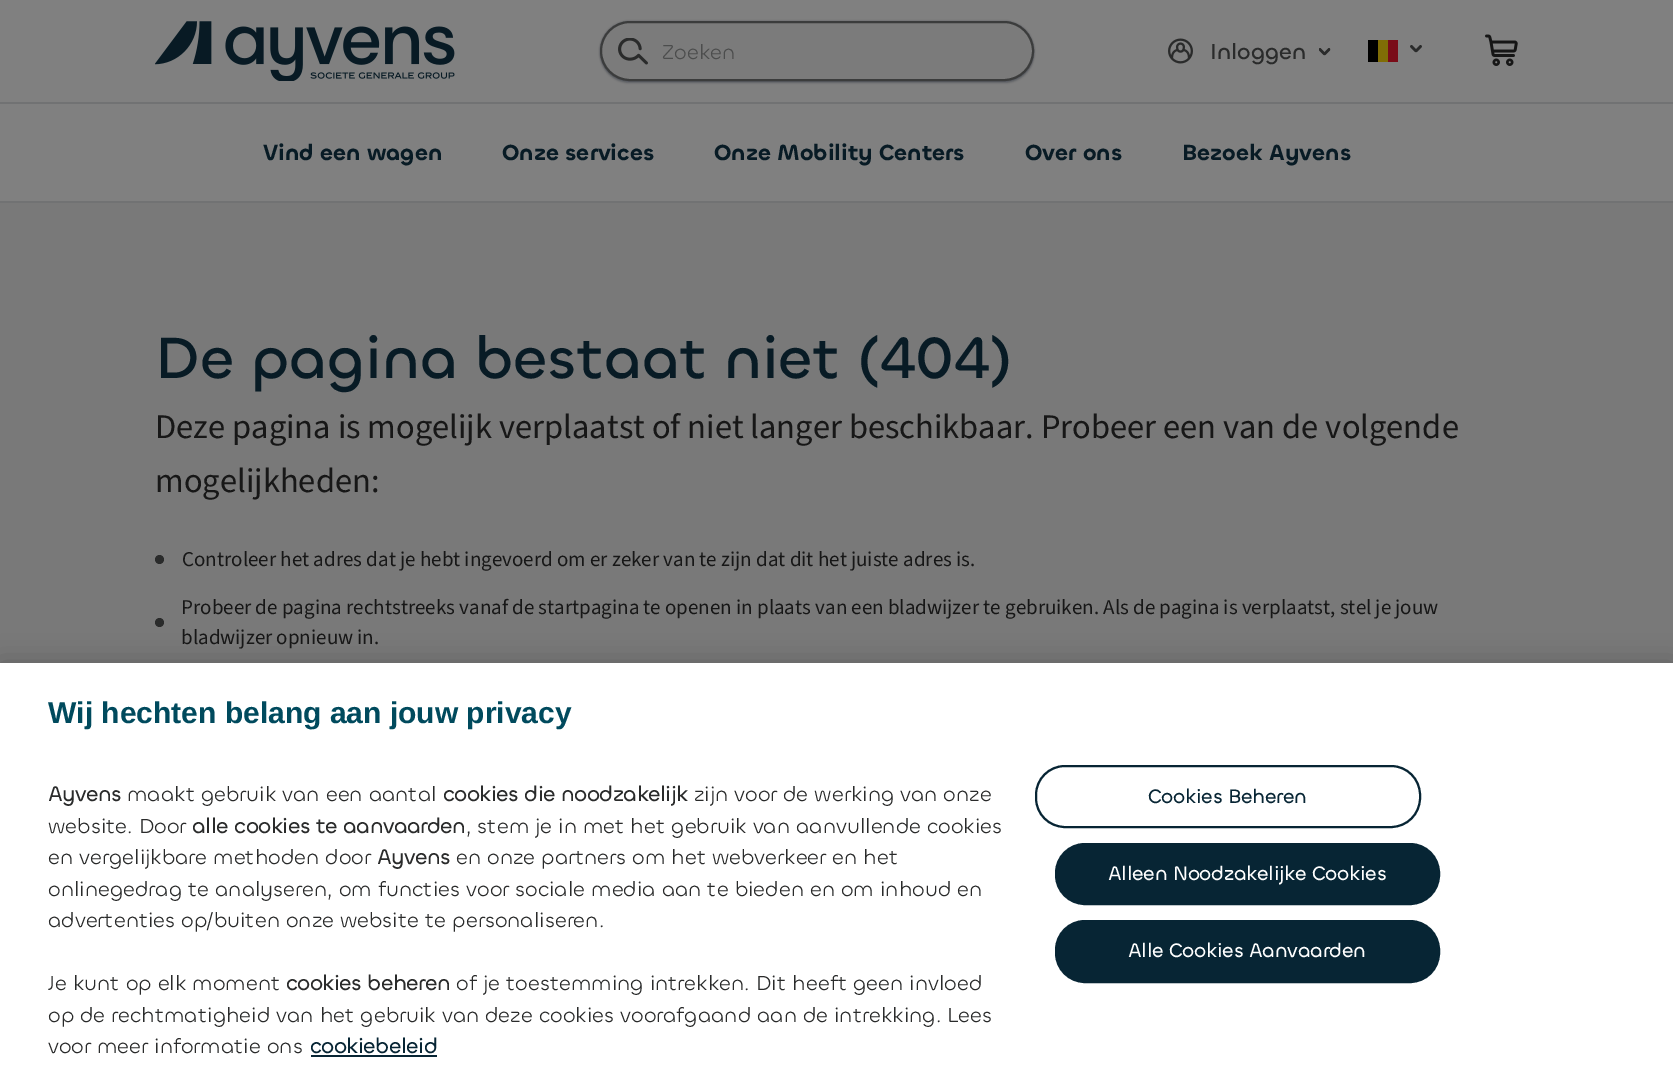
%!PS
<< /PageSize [1673 1077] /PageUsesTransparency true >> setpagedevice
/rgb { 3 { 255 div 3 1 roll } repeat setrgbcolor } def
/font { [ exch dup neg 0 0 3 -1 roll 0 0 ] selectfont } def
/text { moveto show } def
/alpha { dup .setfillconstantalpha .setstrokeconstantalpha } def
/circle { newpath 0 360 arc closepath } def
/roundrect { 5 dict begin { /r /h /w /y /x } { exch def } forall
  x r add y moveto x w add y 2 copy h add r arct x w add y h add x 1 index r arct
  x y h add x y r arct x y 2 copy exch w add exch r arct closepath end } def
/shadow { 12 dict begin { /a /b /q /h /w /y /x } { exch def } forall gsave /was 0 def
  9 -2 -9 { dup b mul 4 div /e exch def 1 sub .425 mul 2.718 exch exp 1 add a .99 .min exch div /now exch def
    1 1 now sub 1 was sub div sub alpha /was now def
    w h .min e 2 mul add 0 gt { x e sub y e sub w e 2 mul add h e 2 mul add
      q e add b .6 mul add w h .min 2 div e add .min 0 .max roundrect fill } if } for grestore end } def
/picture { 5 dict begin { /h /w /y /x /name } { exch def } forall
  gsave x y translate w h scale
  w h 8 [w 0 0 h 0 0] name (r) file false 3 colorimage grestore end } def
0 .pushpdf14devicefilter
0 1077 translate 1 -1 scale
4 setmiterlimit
121 121 121 rgb
0 0 1673 1077 rectfill
128 128 128 rgb
0 0 1673 201 rectfill
(img_01.rgb) 155 21 300 60 picture
5 15 33 rgb
600 21 434 60 30 1 0.3 shadow
600 23 434 60 30 1 0.25 shadow
123 123 123 rgb
601 22 432 58 29 roundrect gsave fill grestore
59 60 60 rgb
2 setlinewidth
stroke
(img_02.rgb) 618 38 30 27 picture
(img_03.rgb) 1168 38 25 26 picture
(img_04.rgb) 1319 48 12 8 picture
0 0 0 rgb
1368 40 10 22 rectfill
128 109 6 rgb
1378 40 10 22 rectfill
122 12 24 rgb
1388 40 10 22 rectfill
(img_05.rgb) 1410 45 12 8 picture
(img_06.rgb) 1485 34 33 32 picture
113 114 115 rgb
0 102 1673 2 rectfill
0 201 1673 2 rectfill
42 43 43 rgb
159.5 559.5 4.5 circle fill
159.5 622.5 4.5 circle fill
0 0 0 rgb
0 663 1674 414 0 13.5 0.2 shadow
255 255 255 rgb
0 663 1673 414 rectfill
7 37 52 rgb
311 1055 126 2 rectfill
1036 766 384 61 29 roundrect stroke
1056 844 383 60 29 roundrect gsave fill grestore
stroke
1056 921 383 61 29 roundrect gsave fill grestore
stroke
/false-Regular 21 font
76 77 77 rgb
(Zoeken) 662 59 text
/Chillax-Medium 22.5 font
42 43 43 rgb
(Inloggen) 1210 59 text
/Chillax-SemiBold 22.5 font
8 27 37 rgb
(Vind een wagen) 263 160 text
(Onze services) 502 160 text
(Onze Mobility Centers) 714 160 text
(Over ons) 1025 160 text
(Bezoek Ayvens) 1182 160 text
/Chillax-Medium 60 font
(De pagina bestaat niet \(404\)) 155 378 text
/SourceSans3-Regular 34.5 font
23 23 23 rgb
(Deze pagina is mogelijk verplaatst of niet langer beschikbaar. Probeer een van de volgende) 155 438 text
(mogelijkheden:) 155 492 text
/SourceSans3-Regular 21 font
(Controleer het adres dat je hebt ingevoerd om er zeker van te zijn dat dit het juiste adres is.) 182 566 text
(Probeer de pagina rechtstreeks vanaf de startpagina te openen in plaats van een bladwijzer te gebruiken. Als de pagina is verplaatst, stel je jouw) 181 614 text
(bladwijzer opnieuw in.) 181 644 text
/LiberationSans-Bold 30 font
0 74 93 rgb
(Wij hechten belang aan jouw privacy) 48 723 text
/false-Bold 21 font
42 43 43 rgb
(Ayvens) 48 801 text
/false-Regular 21 font
(maakt gebruik van een aantal) 127 801 text
/false-Bold 21 font
(cookies die noodzakelijk) 443 801 text
/false-Regular 21 font
(zijn voor de werking van onze) 694 801 text
(website. Door) 48 833 text
/false-Bold 21 font
(alle cookies te aanvaarden) 192 833 text
/false-Regular 21 font
(, stem je in met het gebruik van aanvullende cookies) 466 833 text
(en vergelijkbare methoden door) 48 864 text
/false-Bold 21 font
(Ayvens) 377 864 text
/false-Regular 21 font
(en onze partners om het webverkeer en het) 456 864 text
(onlinegedrag te analyseren, om functies voor sociale media aan te bieden en om inhoud en) 48 896 text
(advertenties op/buiten onze website te personaliseren.) 48 927 text
(Je kunt op elk moment) 48 990 text
/false-Bold 21 font
(cookies beheren) 286 990 text
/false-Regular 21 font
(of je toestemming intrekken. Dit heeft geen invloed) 456 990 text
(op de rechtmatigheid van het gebruik van deze cookies voorafgaand aan de intrekking. Lees) 48 1022 text
(voor meer informatie ons) 48 1053 text
/false-Bold 21 font
7 37 52 rgb
(cookiebeleid) 310 1053 text
/false-Bold 19.5 font
1148 803 moveto 0.2 0 (Cookies Beheren) ashow
255 255 255 rgb
1108 880 moveto 0.2 0 (Alleen Noodzakelijke Cookies) ashow
1128 957 moveto 0.2 0 (Alle Cookies Aanvaarden) ashow
.poppdf14devicefilter showpage
